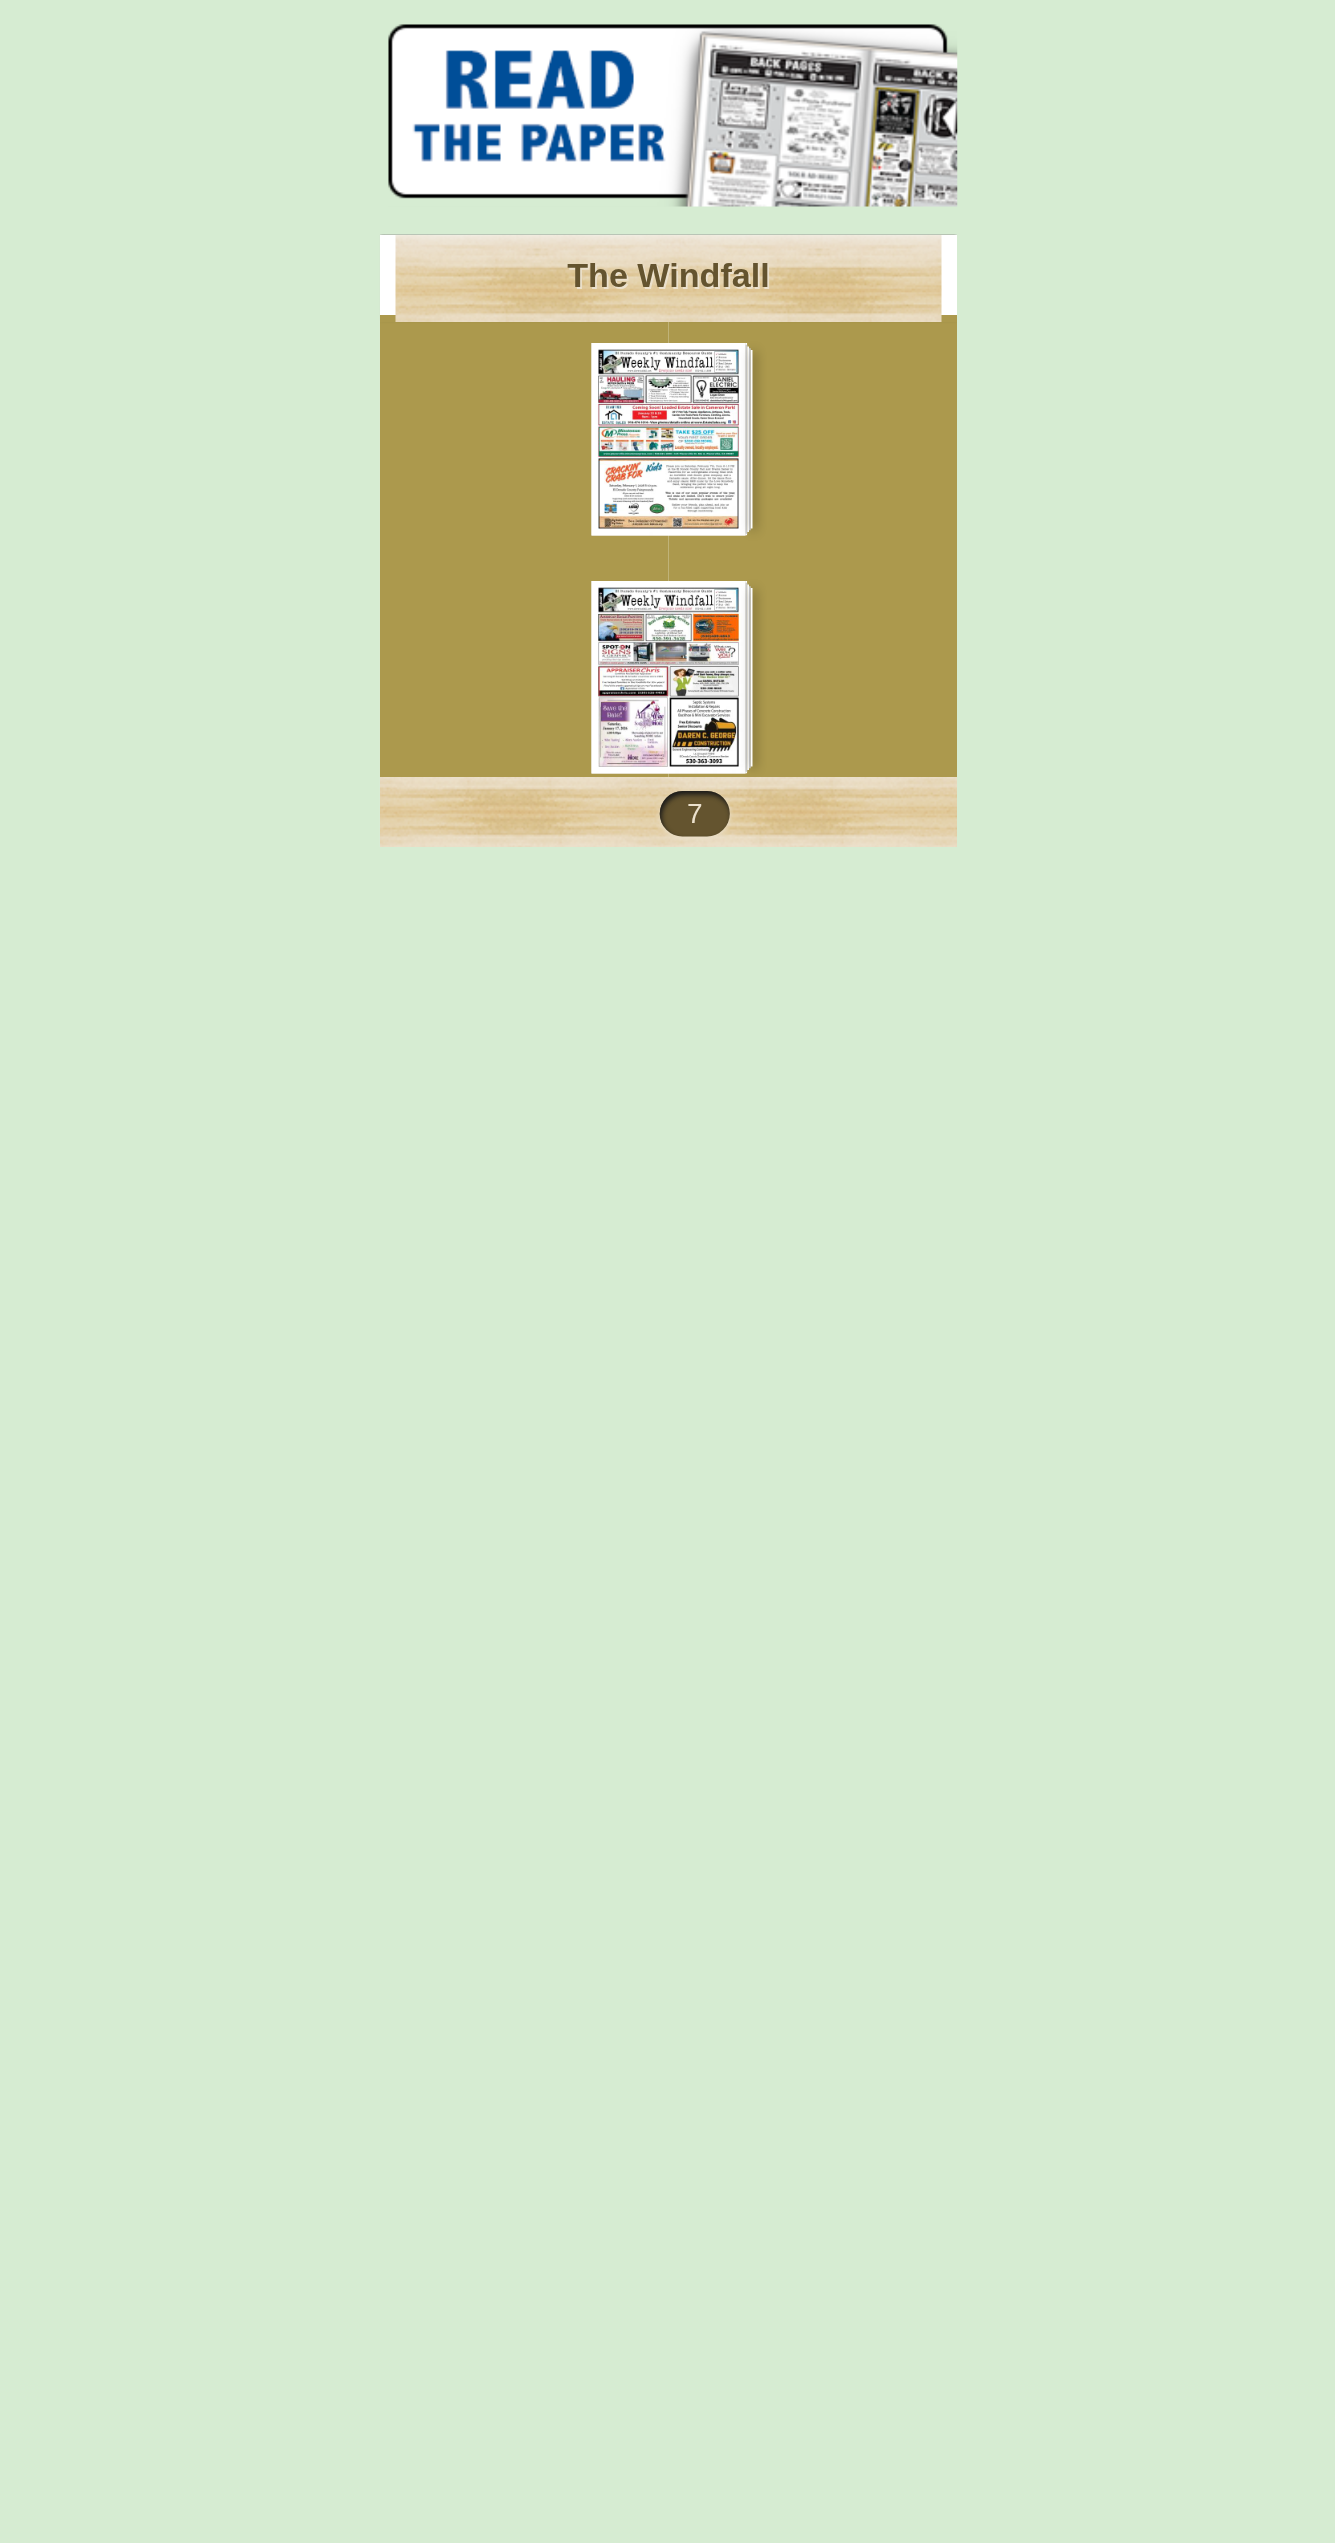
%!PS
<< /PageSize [1335 2543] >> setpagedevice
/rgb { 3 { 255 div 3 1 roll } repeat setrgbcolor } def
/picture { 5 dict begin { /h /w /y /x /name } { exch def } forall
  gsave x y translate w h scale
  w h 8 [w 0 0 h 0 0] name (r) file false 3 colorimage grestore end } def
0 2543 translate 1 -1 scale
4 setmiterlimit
214 236 210 rgb
0 0 1335 2543 rectfill
(img_01.rgb) 388 24 570 183 picture
(img_02.rgb) 379 234 578 613 picture
showpage
